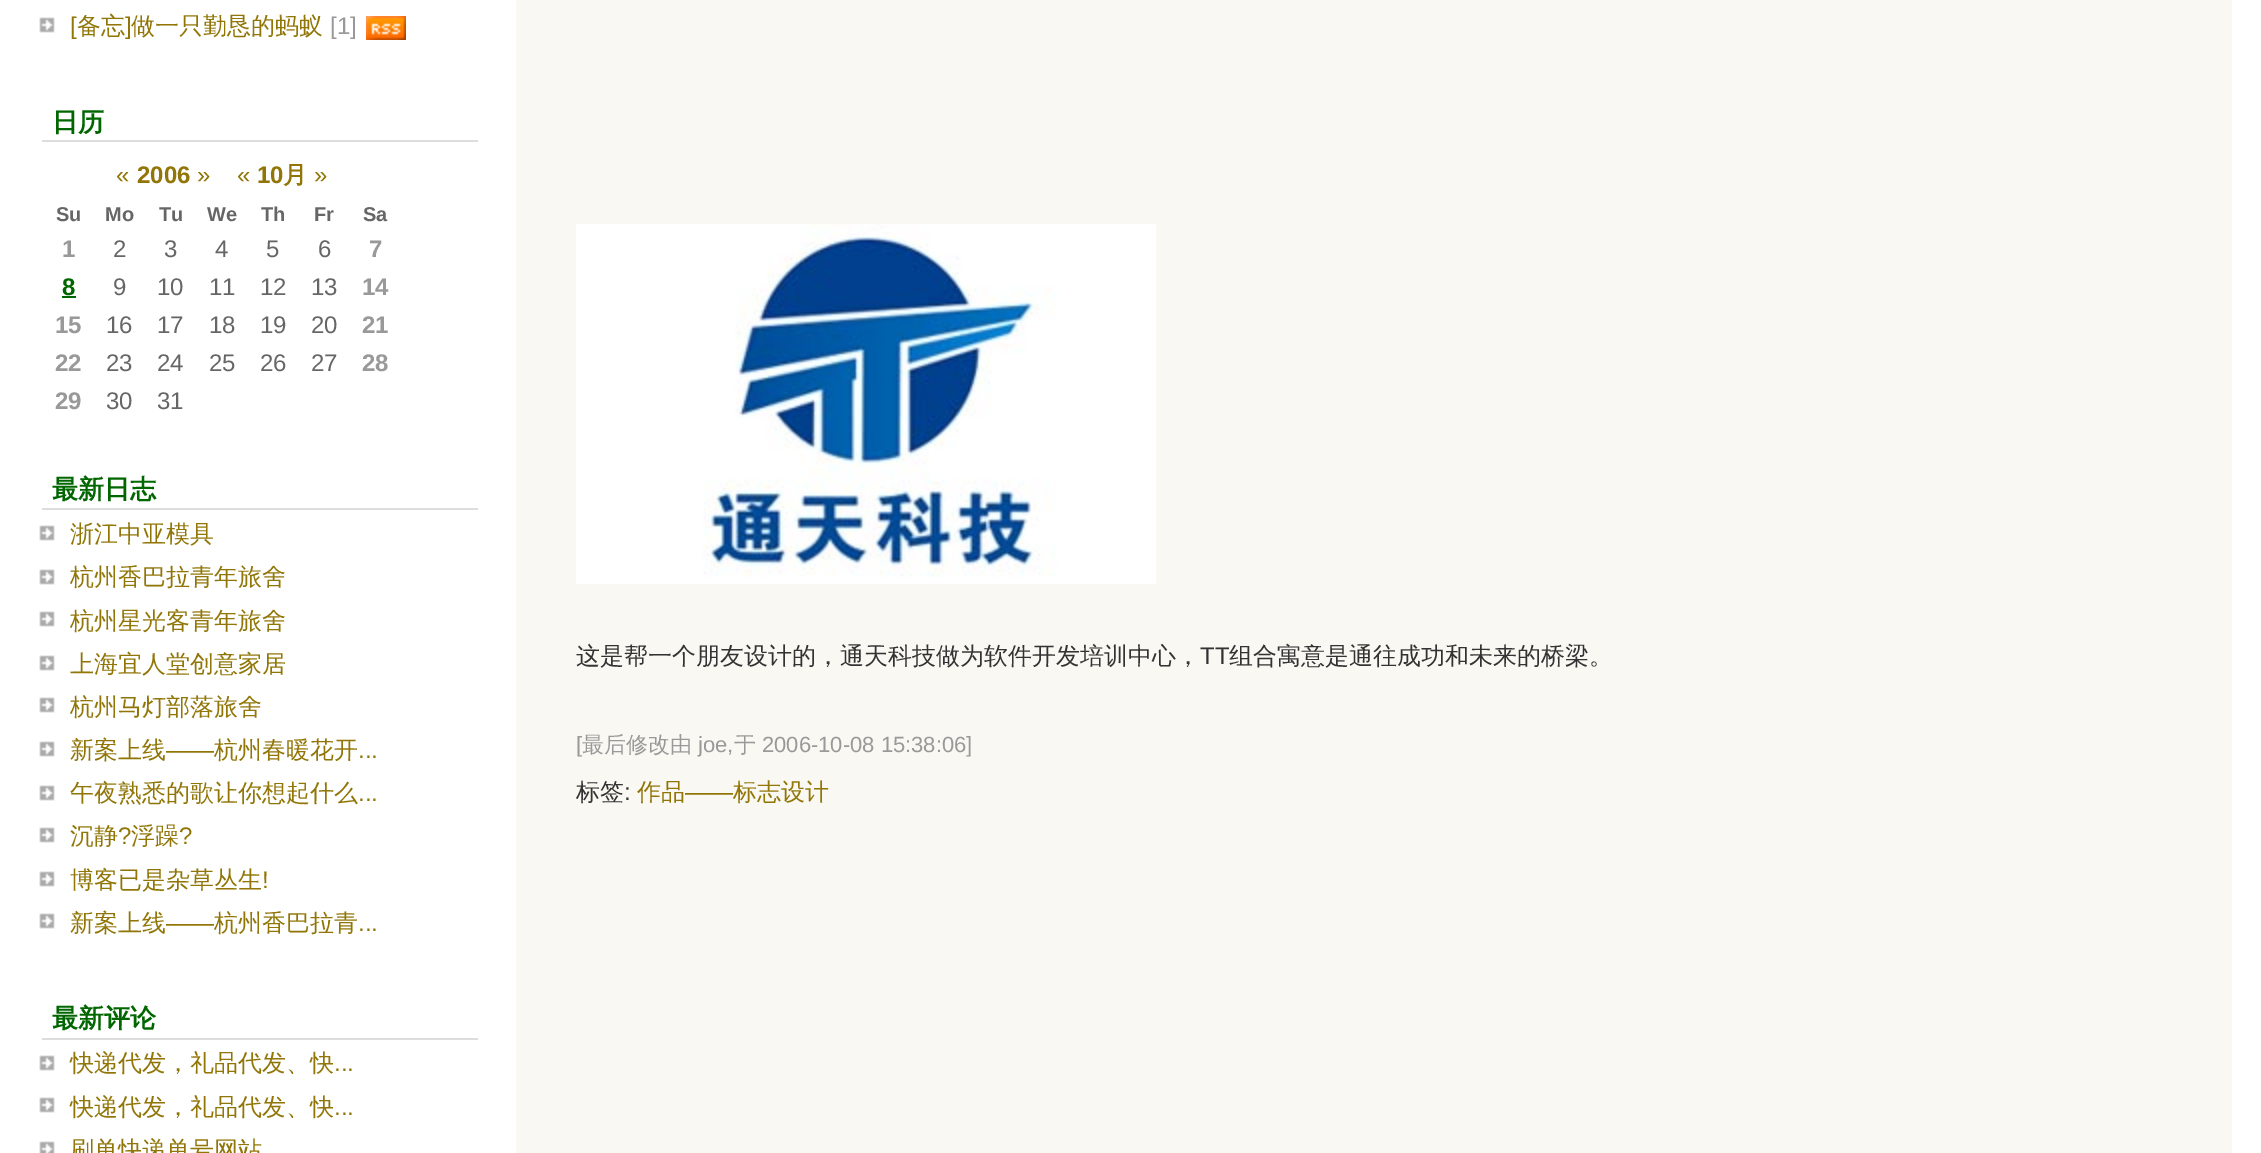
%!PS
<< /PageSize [2261 1153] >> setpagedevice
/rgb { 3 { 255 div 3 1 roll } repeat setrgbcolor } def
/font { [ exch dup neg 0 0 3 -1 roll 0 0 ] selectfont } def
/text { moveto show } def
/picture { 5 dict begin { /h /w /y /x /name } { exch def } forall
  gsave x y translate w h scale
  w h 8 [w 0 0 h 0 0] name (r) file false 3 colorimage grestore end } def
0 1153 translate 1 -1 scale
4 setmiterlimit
255 255 255 rgb
0 0 2261 1153 rectfill
(img_01.rgb) 39 17 16 16 picture
(img_02.rgb) 366 16 40 24 picture
221 221 221 rgb
42 140 436 2 rectfill
0 102 0 rgb
62 296 14 2 rectfill
221 221 221 rgb
42 508 436 2 rectfill
(img_01.rgb) 39 525 16 16 picture
(img_01.rgb) 39 569 16 16 picture
(img_01.rgb) 39 611 16 16 picture
(img_01.rgb) 39 655 16 16 picture
(img_01.rgb) 39 697 16 16 picture
(img_01.rgb) 39 741 16 16 picture
(img_01.rgb) 39 785 16 16 picture
(img_01.rgb) 39 827 16 16 picture
(img_01.rgb) 39 871 16 16 picture
(img_01.rgb) 39 913 16 16 picture
42 1038 436 2 rectfill
(img_01.rgb) 39 1055 16 16 picture
(img_01.rgb) 39 1097 16 16 picture
(img_03.rgb) 39 1141 16 12 picture
249 248 242 rgb
516 0 1716 1153 rectfill
(img_04.rgb) 576 224 580 360 picture
/LiberationSans-Regular 24 font
145 118 7 rgb
([) 70 34 text
/WenQuanYiZenHei-Medium 24 font
(备忘) 77 34 text
/LiberationSans-Regular 24 font
(]) 125 34 text
/WenQuanYiZenHei-Medium 24 font
(做一只勤恳的蚂蚁) 131 34 text
/LiberationSans-Regular 24 font
153 153 153 rgb
([1]) 330 34 text
/WenQuanYiZenHei-Bold 26 font
0 102 0 rgb
(日历) 52 131 text
/LiberationSans-Regular 24 font
145 118 7 rgb
(«) 116 183 text
/LiberationSans-Bold 24 font
(2006) 137 183 text
/LiberationSans-Regular 24 font
(») 197 183 text
(«) 237 183 text
/LiberationSans-Bold 24 font
(10) 257 183 text
/WenQuanYiZenHei-Bold 24 font
(月) 283 183 text
/LiberationSans-Regular 24 font
(») 314 183 text
/LiberationSans-Bold 20 font
102 102 102 rgb
(Su) 56 221 text
(Mo) 105 221 text
(Tu) 159 221 text
(We) 207 221 text
(Th) 261 221 text
(Fr) 314 221 text
(Sa) 363 221 text
/LiberationSans-Bold 24 font
153 153 153 rgb
(1) 62 257 text
/LiberationSans-Regular 24 font
102 102 102 rgb
(2) 113 257 text
(3) 164 257 text
(4) 215 257 text
(5) 266 257 text
(6) 318 257 text
/LiberationSans-Bold 24 font
153 153 153 rgb
(7) 369 257 text
0 102 0 rgb
(8) 62 295 text
/LiberationSans-Regular 24 font
102 102 102 rgb
(9) 113 295 text
(10) 157 295 text
(11) 209 295 text
(12) 260 295 text
(13) 311 295 text
/LiberationSans-Bold 24 font
153 153 153 rgb
(14) 362 295 text
(15) 55 333 text
/LiberationSans-Regular 24 font
102 102 102 rgb
(16) 106 333 text
(17) 157 333 text
(18) 209 333 text
(19) 260 333 text
(20) 311 333 text
/LiberationSans-Bold 24 font
153 153 153 rgb
(21) 362 333 text
(22) 55 371 text
/LiberationSans-Regular 24 font
102 102 102 rgb
(23) 106 371 text
(24) 157 371 text
(25) 209 371 text
(26) 260 371 text
(27) 311 371 text
/LiberationSans-Bold 24 font
153 153 153 rgb
(28) 362 371 text
(29) 55 409 text
/LiberationSans-Regular 24 font
102 102 102 rgb
(30) 106 409 text
(31) 157 409 text
/WenQuanYiZenHei-Bold 26 font
0 102 0 rgb
(最新日志) 52 498 text
/WenQuanYiZenHei-Medium 24 font
145 118 7 rgb
(浙江中亚模具) 70 542 text
(杭州香巴拉青年旅舍) 70 585 text
(杭州星光客青年旅舍) 70 629 text
(上海宜人堂创意家居) 70 672 text
(杭州马灯部落旅舍) 70 715 text
(新案上线) 70 758 text
/LiberationSans-Regular 24 font
(——) 166 758 text
/WenQuanYiZenHei-Medium 24 font
(杭州春暖花开) 214 758 text
/LiberationSans-Regular 24 font
(...) 358 758 text
/WenQuanYiZenHei-Medium 24 font
(午夜熟悉的歌让你想起什么) 70 801 text
/LiberationSans-Regular 24 font
(...) 358 801 text
/WenQuanYiZenHei-Medium 24 font
(沉静) 70 844 text
/LiberationSans-Regular 24 font
(?) 118 844 text
/WenQuanYiZenHei-Medium 24 font
(浮躁) 131 844 text
/LiberationSans-Regular 24 font
(?) 179 844 text
/WenQuanYiZenHei-Medium 24 font
(博客已是杂草丛生) 70 888 text
/LiberationSans-Regular 24 font
(!) 262 888 text
/WenQuanYiZenHei-Medium 24 font
(新案上线) 70 931 text
/LiberationSans-Regular 24 font
(——) 166 931 text
/WenQuanYiZenHei-Medium 24 font
(杭州香巴拉青) 214 931 text
/LiberationSans-Regular 24 font
(...) 358 931 text
/WenQuanYiZenHei-Bold 26 font
0 102 0 rgb
(最新评论) 52 1027 text
/WenQuanYiZenHei-Medium 24 font
145 118 7 rgb
(快递代发，礼品代发、快) 70 1071 text
/LiberationSans-Regular 24 font
(...) 334 1071 text
/WenQuanYiZenHei-Medium 24 font
(快递代发，礼品代发、快) 70 1115 text
/LiberationSans-Regular 24 font
(...) 334 1115 text
/WenQuanYiZenHei-Medium 24 font
(刷单快递单号网站) 70 1158 text
51 51 51 rgb
(这是帮一个朋友设计的，通天科技做为软件开发培训中心，) 576 664 text
/LiberationSans-Regular 24 font
(TT) 1200 664 text
/WenQuanYiZenHei-Medium 24 font
(组合寓意是通往成功和未来的桥梁。) 1229 664 text
/LiberationSans-Regular 22 font
153 153 153 rgb
([) 576 752 text
/WenQuanYiZenHei-Medium 22 font
(最后修改由) 582 752 text
/LiberationSans-Regular 22 font
(joe,) 698 752 text
/WenQuanYiZenHei-Medium 22 font
(于) 734 752 text
/LiberationSans-Regular 22 font
(2006-10-08 15:38:06]) 762 752 text
/WenQuanYiZenHei-Medium 24 font
51 51 51 rgb
(标签) 576 800 text
/LiberationSans-Regular 24 font
(:) 624 800 text
/WenQuanYiZenHei-Medium 24 font
145 118 7 rgb
(作品) 637 800 text
/LiberationSans-Regular 24 font
(——) 685 800 text
/WenQuanYiZenHei-Medium 24 font
(标志设计) 733 800 text
showpage
